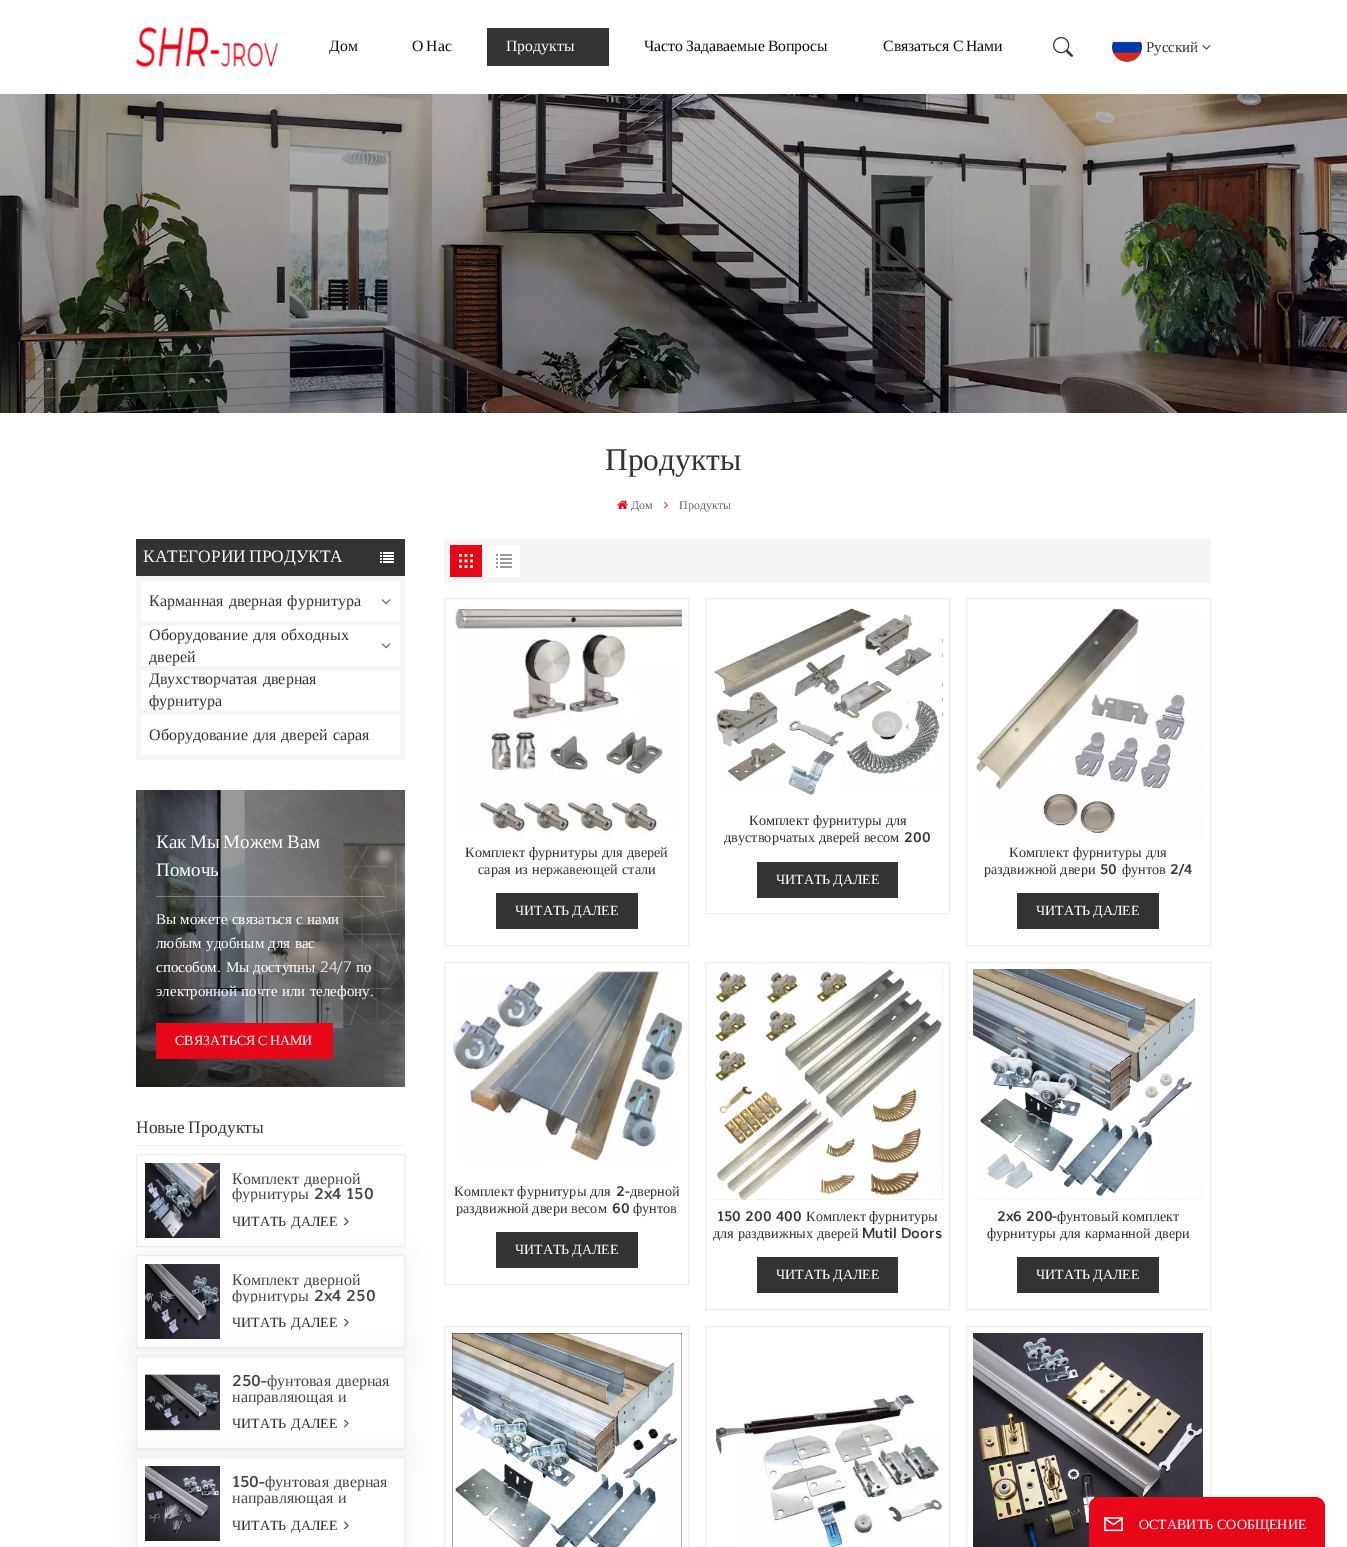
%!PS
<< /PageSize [1347 1547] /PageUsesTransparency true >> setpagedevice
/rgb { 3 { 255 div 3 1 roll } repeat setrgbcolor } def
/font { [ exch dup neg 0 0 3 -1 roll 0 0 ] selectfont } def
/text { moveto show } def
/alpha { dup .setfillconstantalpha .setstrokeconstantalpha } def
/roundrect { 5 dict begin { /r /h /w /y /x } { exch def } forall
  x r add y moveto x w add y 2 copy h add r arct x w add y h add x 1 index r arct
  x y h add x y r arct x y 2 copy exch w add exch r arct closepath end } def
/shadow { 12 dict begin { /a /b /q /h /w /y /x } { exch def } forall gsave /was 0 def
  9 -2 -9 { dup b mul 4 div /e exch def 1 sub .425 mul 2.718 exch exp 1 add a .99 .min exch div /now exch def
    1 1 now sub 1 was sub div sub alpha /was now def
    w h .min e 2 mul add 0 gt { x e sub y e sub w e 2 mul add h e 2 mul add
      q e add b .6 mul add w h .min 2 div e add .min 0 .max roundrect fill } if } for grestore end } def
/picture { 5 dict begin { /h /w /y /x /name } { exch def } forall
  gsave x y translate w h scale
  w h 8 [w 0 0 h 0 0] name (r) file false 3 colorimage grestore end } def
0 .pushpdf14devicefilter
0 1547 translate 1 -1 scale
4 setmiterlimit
255 255 255 rgb
0 0 1347 1547 rectfill
(img_01.rgb) 136 26 142 42 picture
51 51 51 rgb
487 28 122 38 rectfill
(img_02.rgb) 1053 37 20 20 picture
(img_03.rgb) 1112 41 30 21 picture
(img_04.rgb) 1202 45 9 5 picture
(img_05.rgb) 0 94 1347 319 picture
(img_06.rgb) 617 500 11 9 picture
(img_07.rgb) 664 501 4 8 picture
247 247 247 rgb
136 576 269 184 rectfill
51 51 51 rgb
136 539 269 37 rectfill
(img_08.rgb) 380 552 14 11 picture
255 255 255 rgb
141 582 259 39 rectfill
(img_09.rgb) 381 599 10 6 picture
141 626 259 40 rectfill
(img_09.rgb) 381 643 10 6 picture
141 671 259 39 rectfill
141 715 259 40 rectfill
(img_10.rgb) 136 790 269 297 picture
0.3 alpha
156 896 229 1 rectfill
1 alpha
231 7 25 rgb
156 1023 177 36 rectfill
238 238 238 rgb
136 1145 269 1 rectfill
136.5 1154.5 268 92 rectstroke
(img_11.rgb) 145 1163 75 75 picture
(img_12.rgb) 344 1217 5 9 picture
444.5 962.5 244 322 rectstroke
444.5 1326.5 244 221 rectstroke
0 0 0 rgb
136 1255 269 93 0 15 0.06 shadow
255 255 255 rgb
136.5 1255.5 moveto 268 0 rlineto 0 92 rlineto -268 0 rlineto closepath gsave fill grestore
238 238 238 rgb
stroke
(img_13.rgb) 145 1264 75 75 picture
(img_12.rgb) 344 1318 5 9 picture
0 0 0 rgb
136 1356 269 93 0 15 0.06 shadow
255 255 255 rgb
136.5 1356.5 moveto 268 0 rlineto 0 92 rlineto -268 0 rlineto closepath gsave fill grestore
238 238 238 rgb
stroke
(img_14.rgb) 145 1374 75 57 picture
(img_12.rgb) 344 1419 5 9 picture
0 0 0 rgb
136 1457 269 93 0 15 0.06 shadow
255 255 255 rgb
136.5 1457.5 moveto 268 0 rlineto 0 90 rlineto -268 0 rlineto closepath gsave fill grestore
238 238 238 rgb
stroke
(img_15.rgb) 145 1466 75 75 picture
(img_12.rgb) 344 1521 5 9 picture
245 245 245 rgb
444 539 767 44 rectfill
231 7 25 rgb
450 545 32 32 rectfill
(img_16.rgb) 459 554 14 14 picture
255 255 255 rgb
488 545 32 32 rectfill
(img_17.rgb) 496 554 16 14 picture
238 238 238 rgb
444.5 598.5 244 347 rectstroke
(img_18.rgb) 455 606 227 230 picture
51 51 51 rgb
496 893 142 36 rectfill
238 238 238 rgb
705.5 598.5 244 315 rectstroke
(img_19.rgb) 714 608 229 187 picture
51 51 51 rgb
757 862 141 36 rectfill
238 238 238 rgb
966.5 598.5 244 347 rectstroke
(img_20.rgb) 973 609 230 227 picture
51 51 51 rgb
1017 893 142 36 rectfill
(img_21.rgb) 452 971 230 191 picture
496 1232 142 36 rectfill
238 238 238 rgb
705.5 962.5 244 347 rectstroke
(img_22.rgb) 712 969 231 231 picture
51 51 51 rgb
757 1257 141 36 rectfill
238 238 238 rgb
966.5 962.5 244 347 rectstroke
(img_23.rgb) 973 969 230 231 picture
51 51 51 rgb
1017 1257 142 36 rectfill
(img_24.rgb) 452 1333 230 214 picture
238 238 238 rgb
705.5 1326.5 244 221 rectstroke
(img_25.rgb) 715 1394 228 153 picture
966.5 1326.5 244 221 rectstroke
(img_26.rgb) 973 1333 230 214 picture
231 7 25 rgb
1099 1497 moveto 216 0 rlineto 5.5 0 10 4.5 10 10 rcurveto 0 40 rlineto -236 0 rlineto 0 -40 rlineto 0 -5.5 4.5 -10 10 -10 rcurveto closepath fill
(img_27.rgb) 1104 1517 19 15 picture
/LiberationSerif-Regular 15.75 font
17 17 17 rgb
(Дом) 329 51 text
412 51 moveto -1 0 32 (О Нас) widthshow
255 255 255 rgb
(Продукты) 506 51 text
17 17 17 rgb
644 51 moveto -1 0 32 (Часто Задаваемые Вопросы) widthshow
883 51 moveto -1 0 32 (Связаться С Нами) widthshow
/LiberationSerif-Regular 15 font
51 51 51 rgb
(Русский) 1146 52 text
/LiberationSerif-Regular 31.5 font
(Продукты) 605 470 text
/LiberationSerif-Regular 12 font
102 102 102 rgb
(Дом) 631 509 text
(Продукты) 679 509 text
/LiberationSerif-Regular 17.4 font
255 255 255 rgb
143 562 moveto -1 0 32 (КАТЕГОРИИ ПРОДУКТА) widthshow
/LiberationSerif-Regular 16 font
51 51 51 rgb
149 606 moveto 1 0 32 (Карманная дверная фурнитура) widthshow
149 640 moveto 1 0 32 (Оборудование для обходных) widthshow
(дверей) 149 662 text
149 684 moveto 1 0 32 (Двухстворчатая дверная) widthshow
(фурнитура) 149 706 text
149 740 moveto 1 0 32 (Оборудование для дверей сарая) widthshow
/LiberationSerif-Regular 19 font
255 255 255 rgb
156 848 moveto -1 0 32 (Как Мы Можем Вам) widthshow
(Помочь) 156 876 text
/LiberationSerif-Regular 15 font
156 924 moveto 0.5 0 32 (Вы можете связаться с нами) widthshow
156 948 moveto 0.5 0 32 (любым удобным для вас) widthshow
(способом) 156 972 text
/Muli-Light 15 font
(.) 217 972 text
/LiberationSerif-Regular 15 font
(Мы доступны) 226 972 text
/Muli-Light 15 font
(24/7) 320 972 text
/LiberationSerif-Regular 15 font
(по) 356 972 text
156 996 moveto 0.5 0 32 (электронной почте или телефону) widthshow
/Muli-Light 15 font
(.) 370 996 text
/LiberationSerif-Regular 14 font
175 1045 moveto -1 0 32 (СВЯЗАТЬСЯ С НАМИ) widthshow
/LiberationSerif-Regular 17.4 font
51 51 51 rgb
136 1133 moveto -1 0 32 (Новые Продукты) widthshow
/LiberationSerif-Regular 16 font
68 68 68 rgb
232 1184 moveto 1 0 32 (Комплект дверной) widthshow
gsave
232 1171 164 31 rectclip
(фурнитуры) 232 1199 text
grestore
/Muli-Bold 16 font
(2x4 150) 314 1199 text
/LiberationSerif-Regular 14 font
51 51 51 rgb
232 1226 moveto 1 0 32 (ЧИТАТЬ ДАЛЕЕ) widthshow
/LiberationSerif-Regular 16 font
68 68 68 rgb
232 1285 moveto 1 0 32 (Комплект дверной) widthshow
gsave
232 1272 164 31 rectclip
(фурнитуры) 232 1301 text
grestore
/Muli-Bold 16 font
(2x4 250) 314 1301 text
/LiberationSerif-Regular 14 font
51 51 51 rgb
232 1327 moveto 1 0 32 (ЧИТАТЬ ДАЛЕЕ) widthshow
/Muli-Bold 16 font
68 68 68 rgb
(250-) 232 1386 text
/LiberationSerif-Regular 16 font
267 1386 moveto 1 0 32 (фунтовая дверная) widthshow
gsave
232 1373 164 32 rectclip
232 1402 moveto 1 0 32 (направляющая и) widthshow
grestore
/LiberationSerif-Regular 14 font
51 51 51 rgb
232 1428 moveto 1 0 32 (ЧИТАТЬ ДАЛЕЕ) widthshow
/Muli-Bold 16 font
68 68 68 rgb
(150-) 232 1487 text
/LiberationSerif-Regular 16 font
265 1487 moveto 1 0 32 (фунтовая дверная) widthshow
gsave
232 1474 164 32 rectclip
232 1503 moveto 1 0 32 (направляющая и) widthshow
grestore
/LiberationSerif-Regular 14 font
51 51 51 rgb
232 1530 moveto 1 0 32 (ЧИТАТЬ ДАЛЕЕ) widthshow
/LiberationSerif-Regular 14.25 font
465 857 moveto 0.5 0 32 (Комплект фурнитуры для дверей) widthshow
478 874 moveto 0.5 0 32 (сарая из нержавеющей стали) widthshow
/LiberationSerif-Regular 14 font
255 255 255 rgb
515 915 moveto -1 0 32 (ЧИТАТЬ ДАЛЕЕ) widthshow
/LiberationSerif-Regular 14.25 font
51 51 51 rgb
749 825 moveto 0.5 0 32 (Комплект фурнитуры для) widthshow
(двустворчатых дверей весом) 724 842 text
/Muli-Bold 14.25 font
(200) 904 842 text
/LiberationSerif-Regular 14 font
255 255 255 rgb
776 884 moveto -1 0 32 (ЧИТАТЬ ДАЛЕЕ) widthshow
/LiberationSerif-Regular 14.25 font
51 51 51 rgb
1009 857 moveto 0.5 0 32 (Комплект фурнитуры для) widthshow
(раздвижной двери) 984 874 text
/Muli-Bold 14.25 font
(50) 1100 874 text
/LiberationSerif-Regular 14.25 font
(фунтов) 1122 874 text
/Muli-Bold 14.25 font
(2/4) 1170 874 text
/LiberationSerif-Regular 14 font
255 255 255 rgb
1036 915 moveto -1 0 32 (ЧИТАТЬ ДАЛЕЕ) widthshow
/LiberationSerif-Regular 14.25 font
51 51 51 rgb
(Комплект фурнитуры для) 454 1196 text
/Muli-Bold 14.25 font
(2-) 616 1196 text
/LiberationSerif-Regular 14.25 font
(дверной) 630 1196 text
(раздвижной двери весом) 456 1213 text
/Muli-Bold 14.25 font
(60) 612 1213 text
/LiberationSerif-Regular 14.25 font
(фунтов) 633 1213 text
/LiberationSerif-Regular 14 font
255 255 255 rgb
515 1254 moveto -1 0 32 (ЧИТАТЬ ДАЛЕЕ) widthshow
/Muli-Bold 14.25 font
51 51 51 rgb
(150 200 400) 717 1221 text
/LiberationSerif-Regular 14.25 font
(Комплект) 806 1221 text
(фурнитуры) 869 1221 text
(для) 713 1238 text
(раздвижных) 738 1238 text
(дверей) 817 1238 text
/Muli-Bold 14.25 font
(Mutil Doors) 862 1238 text
/LiberationSerif-Regular 14 font
255 255 255 rgb
776 1279 moveto -1 0 32 (ЧИТАТЬ ДАЛЕЕ) widthshow
/Muli-Bold 14.25 font
51 51 51 rgb
(2x6 200-) 997 1221 text
/LiberationSerif-Regular 14.25 font
(фунтовый) 1057 1221 text
(комплект) 1122 1221 text
987 1238 moveto 0.5 0 32 (фурнитуры для карманной двери) widthshow
/LiberationSerif-Regular 14 font
255 255 255 rgb
1036 1279 moveto -1 0 32 (ЧИТАТЬ ДАЛЕЕ) widthshow
1139 1529 moveto 0.5 0 32 (ОСТАВИТЬ СООБЩЕНИЕ) widthshow
.poppdf14devicefilter showpage
